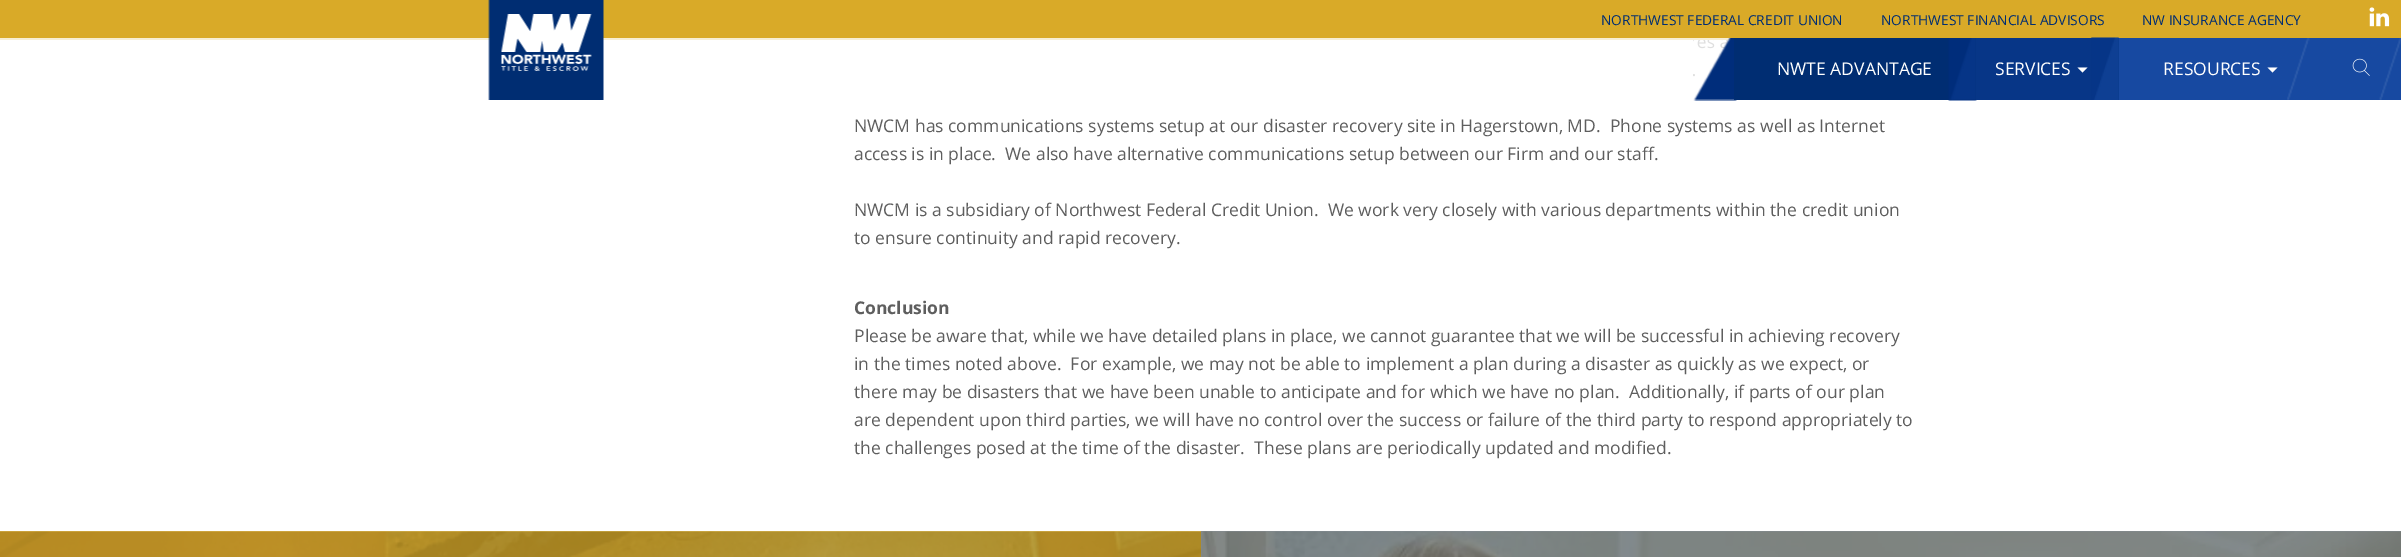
%!PS
<< /PageSize [2401 557] /PageUsesTransparency true >> setpagedevice
/rgb { 3 { 255 div 3 1 roll } repeat setrgbcolor } def
/font { [ exch dup neg 0 0 3 -1 roll 0 0 ] selectfont } def
/text { moveto show } def
/alpha { dup .setfillconstantalpha .setstrokeconstantalpha } def
/picture { 5 dict begin { /h /w /y /x /name } { exch def } forall
  gsave x y translate w h scale
  w h 8 [w 0 0 h 0 0] name (r) file false 3 colorimage grestore end } def
0 .pushpdf14devicefilter
0 557 translate 1 -1 scale
4 setmiterlimit
255 255 255 rgb
0 0 2401 557 rectfill
227 191 94 rgb
0 531 1201 1 rectfill
217 170 40 rgb
0 0 2401 40 rectfill
(img_01.rgb) 2369 7 21 20 picture
0.8 alpha
255 255 255 rgb
0 38 1734 2 rectfill
1 alpha
(img_02.rgb) 488 0 116 100 picture
(img_03.rgb) 1693 38 44 63 picture
0 45 114 rgb
1734 38 242 62 rectfill
(img_04.rgb) 1948 38 29 63 picture
7 54 135 rgb
1976 38 143 62 rectfill
(img_05.rgb) 2091 37 28 63 picture
255 255 255 rgb
2077.5 67.5 moveto 10 0 rlineto -5 5 rlineto closepath fill
23 73 161 rgb
2119 38 282 62 rectfill
(img_06.rgb) 2287 38 23 62 picture
255 255 255 rgb
2267.5 67.5 moveto 10 0 rlineto -5 5 rlineto closepath fill
(img_07.rgb) 2379 38 22 62 picture
(img_08.rgb) 2352 58 18 18 picture
(img_09.rgb) 0 531 1202 26 picture
(img_10.rgb) 1201 531 1200 26 picture
0.75 alpha
91 103 112 rgb
1201 531 1200 26 rectfill
/OpenSans-Regular 13.75 font
1 alpha
0 45 114 rgb
(NORTHWEST FEDERAL CREDIT UNION) 1601 25 text
(NORTHWEST FINANCIAL ADVISORS) 1881 25 text
(NW INSURANCE AGENCY) 2142 25 text
/OpenSans-Regular 17.5 font
255 255 255 rgb
(NWTE ADVANTAGE) 1777 75 text
(SERVICES) 1995 75 text
(RESOURCES) 2163 75 text
94 94 94 rgb
(NWCM has communications systems setup at our disaster recovery site in Hagerstown, MD.  Phone systems as well as Internet) 854 132 text
(access is in place.  We also have alternative communications setup between our Firm and our staff.) 854 160 text
(NWCM is a subsidiary of Northwest Federal Credit Union.  We work very closely with various departments within the credit union) 854 216 text
(to ensure continuity and rapid recovery.) 854 244 text
/OpenSans-Bold 17.5 font
(Conclusion) 854 314 text
/OpenSans-Regular 17.5 font
(Please be aware that, while we have detailed plans in place, we cannot guarantee that we will be successful in achieving recovery) 854 342 text
(in the times noted above.  For example, we may not be able to implement a plan during a disaster as quickly as we expect, or) 854 370 text
(there may be disasters that we have been unable to anticipate and for which we have no plan.  Additionally, if parts of our plan) 854 398 text
(are dependent upon third parties, we will have no control over the success or failure of the third party to respond appropriately to) 854 426 text
(the challenges posed at the time of the disaster.  These plans are periodically updated and modified.) 854 454 text
.poppdf14devicefilter showpage
